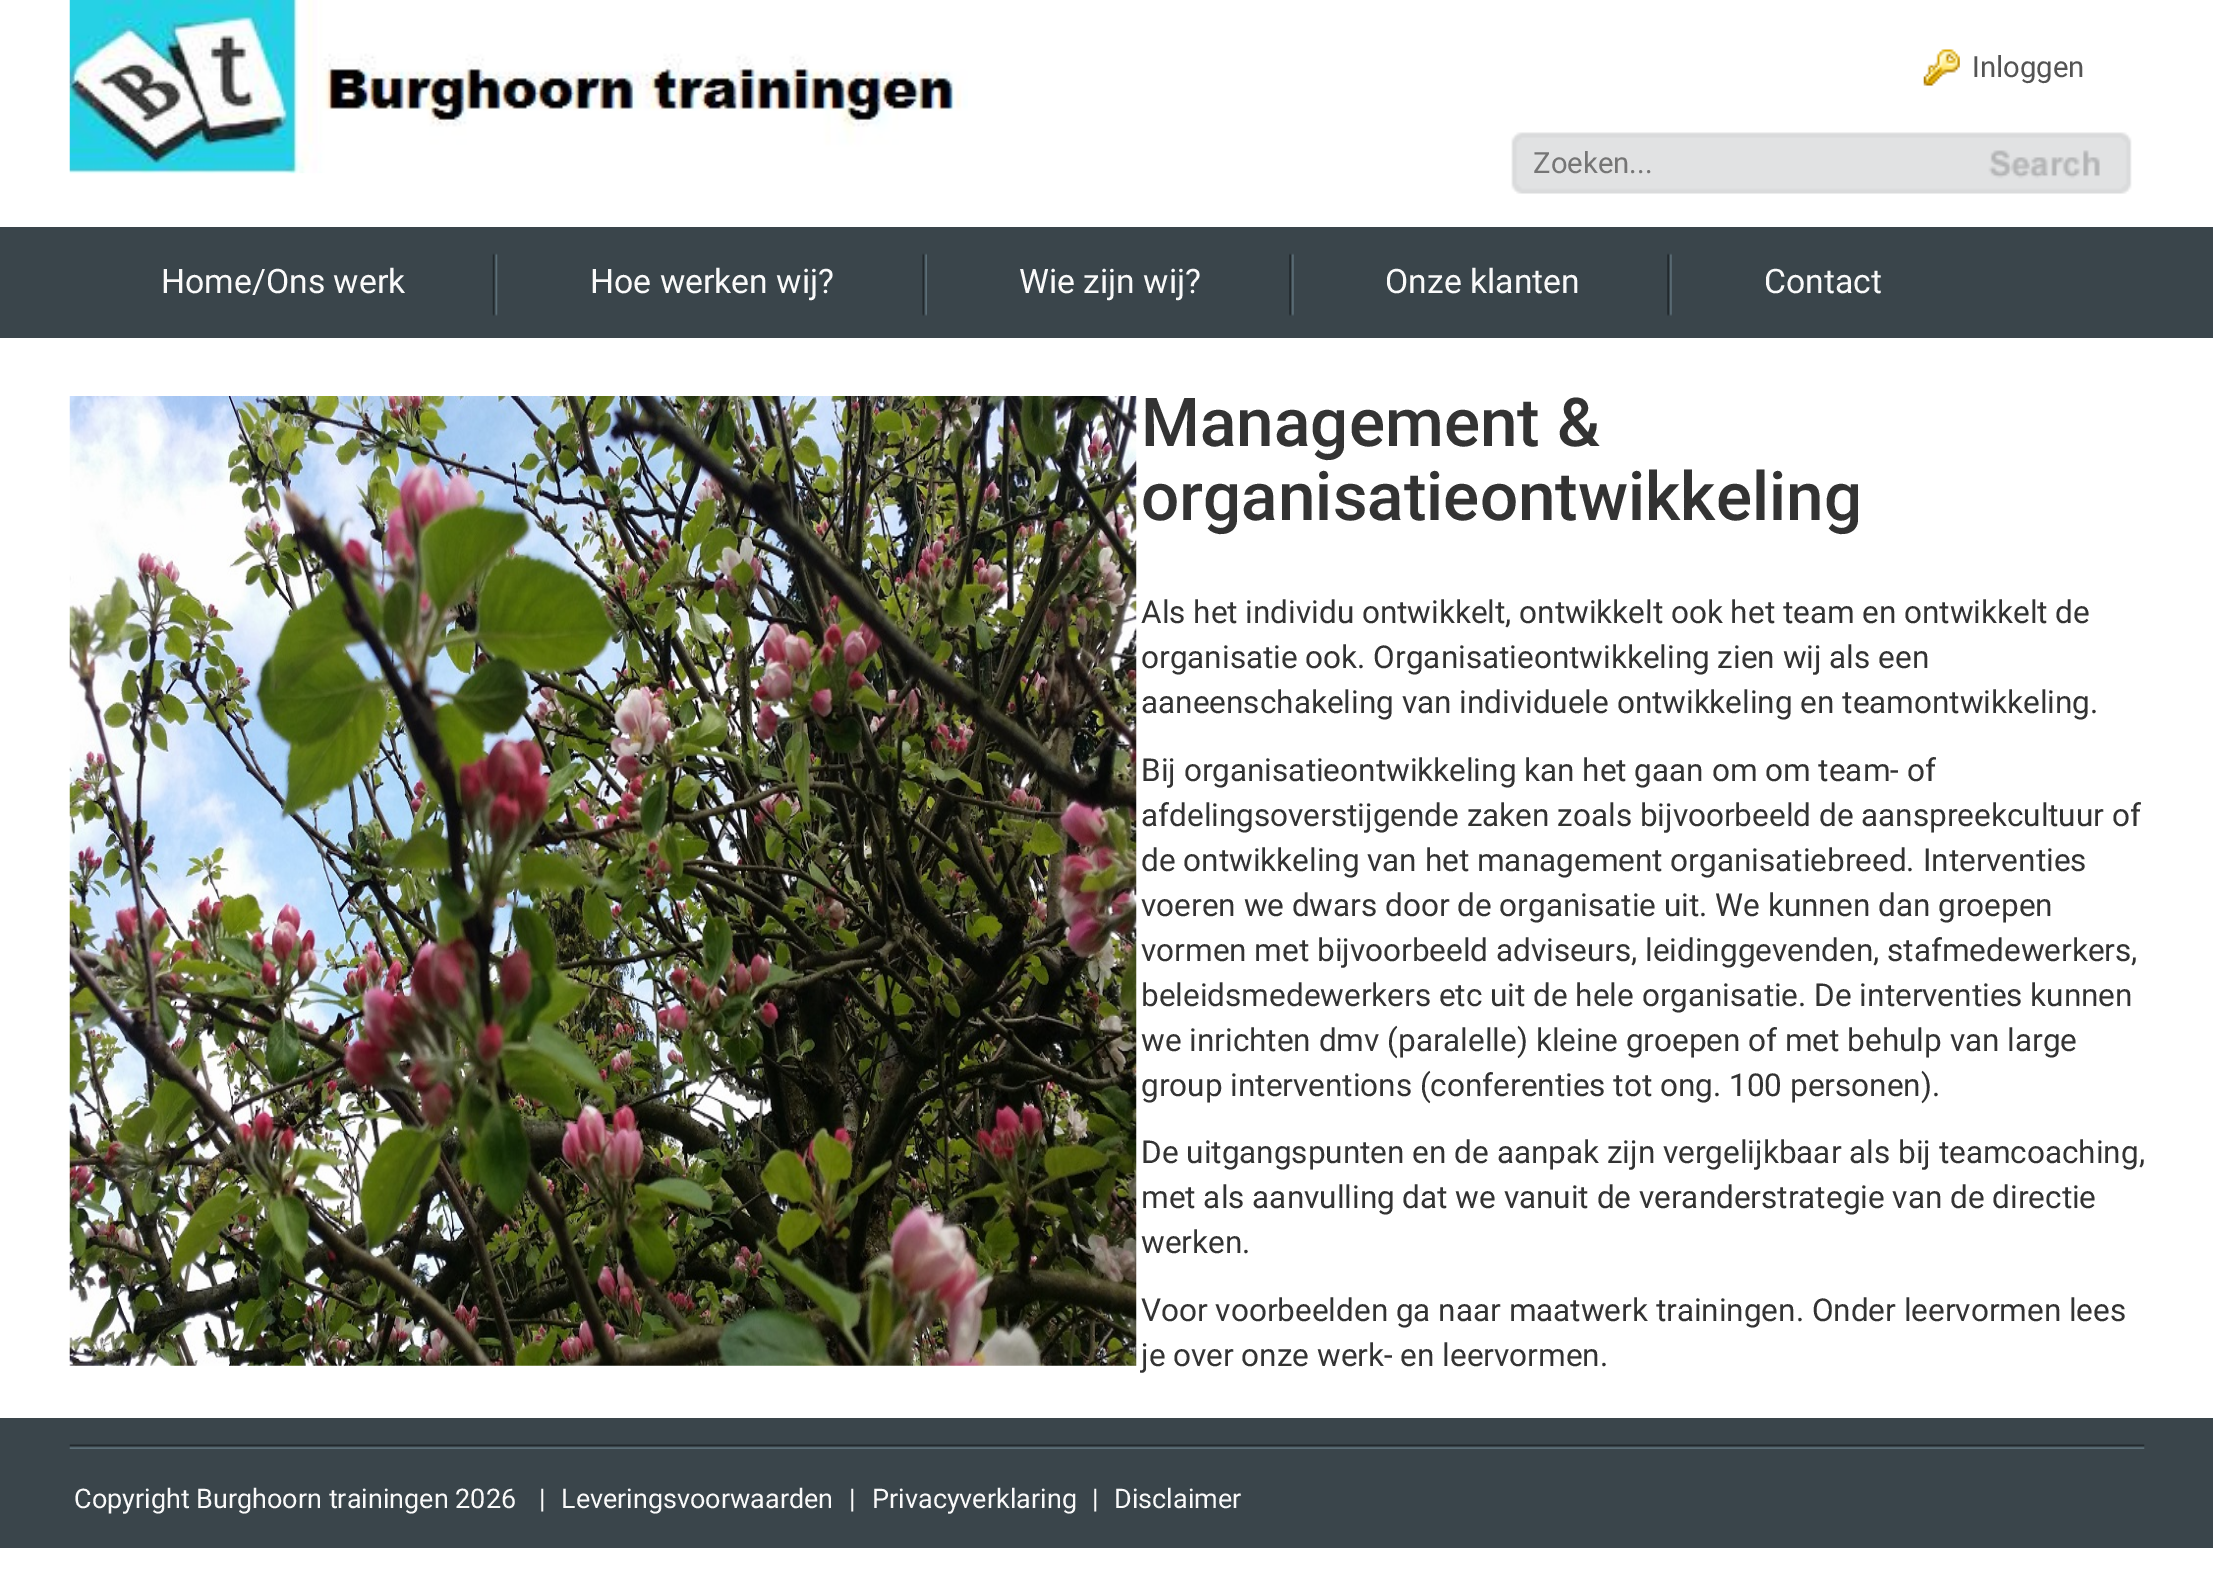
%!PS
<< /PageSize [2213 1580] >> setpagedevice
/rgb { 3 { 255 div 3 1 roll } repeat setrgbcolor } def
/font { [ exch dup neg 0 0 3 -1 roll 0 0 ] selectfont } def
/text { moveto show } def
/picture { 5 dict begin { /h /w /y /x /name } { exch def } forall
  gsave x y translate w h scale
  w h 8 [w 0 0 h 0 0] name (r) file false 3 colorimage grestore end } def
0 1580 translate 1 -1 scale
4 setmiterlimit
255 255 255 rgb
0 0 2213 1580 rectfill
(img_01.rgb) 69 0 899 174 picture
(img_02.rgb) 1923 49 37 37 picture
(img_03.rgb) 1511 132 621 62 picture
58 69 75 rgb
0 227 2213 111 rectfill
(img_04.rgb) 492 253 6 63 picture
(img_05.rgb) 922 253 5 63 picture
(img_06.rgb) 1289 253 5 63 picture
(img_07.rgb) 1667 253 5 63 picture
(img_08.rgb) 69 396 1068 970 picture
0 1418 2213 130 rectfill
(img_09.rgb) 69 1444 2076 5 picture
/Roboto-Regular 29.25 font
84 84 84 rgb
(Inloggen) 1972 77 text
117 117 117 rgb
(Zoeken...) 1533 173 text
/Roboto-Regular 33.75 font
250 250 250 rgb
(Home/Ons werk) 161 293 text
(Hoe werken wij?) 590 293 text
(Wie zijn wij?) 1019 293 text
(Onze klanten) 1385 293 text
(Contact) 1764 293 text
/Roboto-Medium 67.5 font
51 51 51 rgb
(Management &) 1141 446 text
(organisatieontwikkeling) 1141 520 text
/Roboto-Regular 31.5 font
(Als het individu ontwikkelt, ontwikkelt ook het team en ontwikkelt de) 1141 623 text
(organisatie ook. Organisatieontwikkeling zien wij als een) 1141 668 text
(aaneenschakeling van individuele ontwikkeling en teamontwikkeling.) 1141 713 text
(Bij organisatieontwikkeling kan het gaan om om team- of) 1141 781 text
(afdelingsoverstijgende zaken zoals bijvoorbeeld de aanspreekcultuur of) 1141 826 text
(de ontwikkeling van het management organisatiebreed. Interventies) 1141 871 text
(voeren we dwars door de organisatie uit. We kunnen dan groepen) 1141 916 text
(vormen met bijvoorbeeld adviseurs, leidinggevenden, stafmedewerkers,) 1141 961 text
(beleidsmedewerkers etc uit de hele organisatie. De interventies kunnen) 1141 1006 text
(we inrichten dmv \(paralelle\) kleine groepen of met behulp van large) 1141 1051 text
(group interventions \(conferenties tot ong. 100 personen\).) 1141 1096 text
(De uitgangspunten en de aanpak zijn vergelijkbaar als bij teamcoaching,) 1141 1163 text
(met als aanvulling dat we vanuit de veranderstrategie van de directie) 1141 1208 text
(werken.) 1141 1253 text
(Voor voorbeelden ga naar maatwerk trainingen. Onder leervormen lees) 1141 1321 text
(je over onze werk- en leervormen.) 1141 1366 text
/Roboto-Regular 27 font
250 250 250 rgb
(Copyright Burghoorn trainingen 2026) 74 1508 text
(|) 539 1508 text
(Leveringsvoorwaarden) 561 1508 text
(|) 849 1508 text
(Privacyverklaring) 872 1508 text
(|) 1092 1508 text
(Disclaimer) 1114 1508 text
showpage
